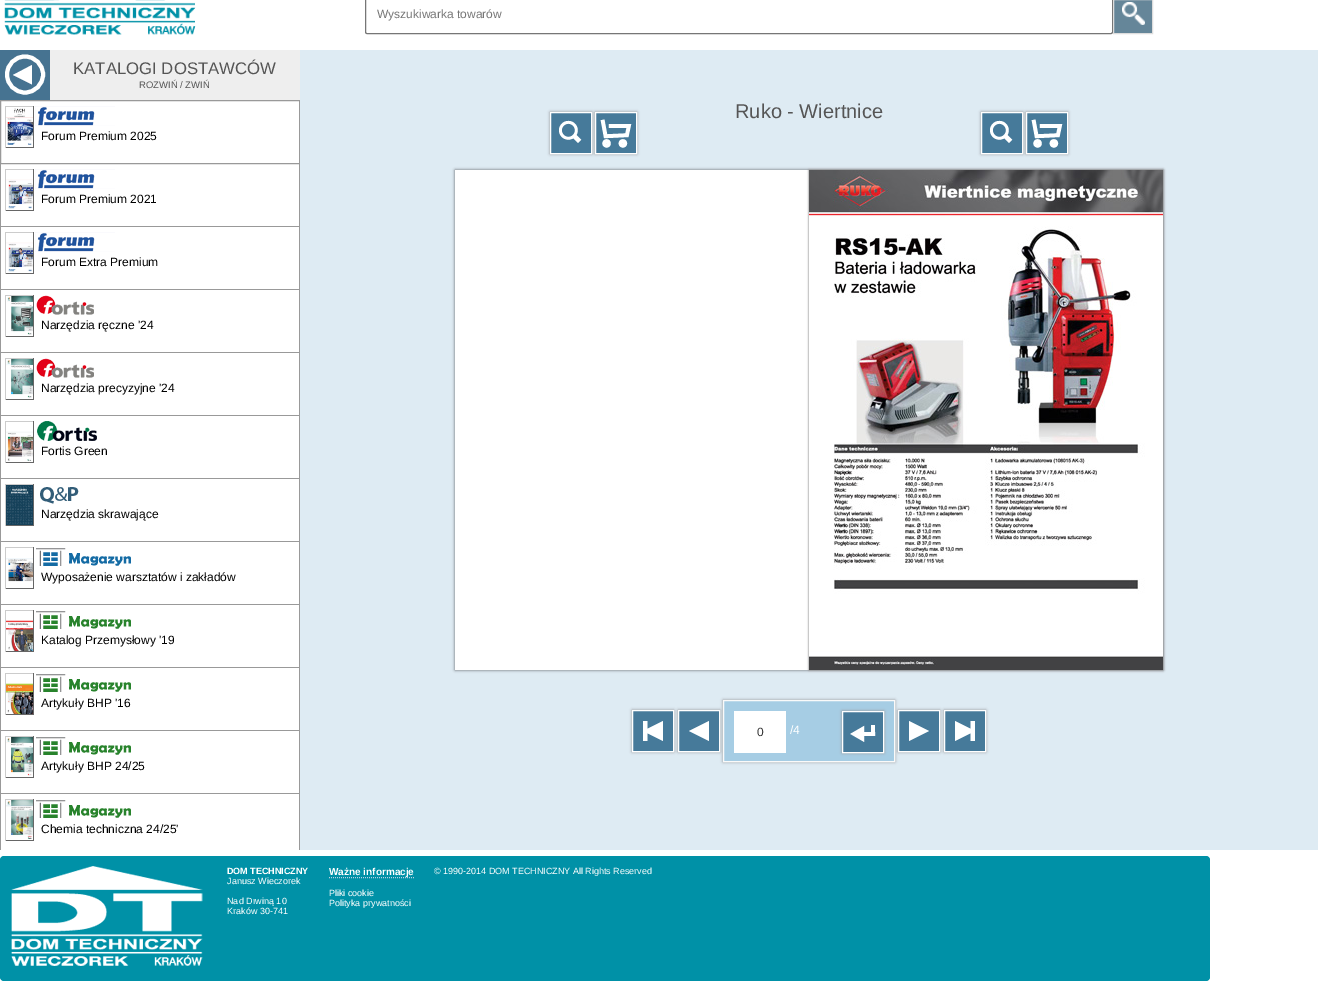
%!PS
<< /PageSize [1318 983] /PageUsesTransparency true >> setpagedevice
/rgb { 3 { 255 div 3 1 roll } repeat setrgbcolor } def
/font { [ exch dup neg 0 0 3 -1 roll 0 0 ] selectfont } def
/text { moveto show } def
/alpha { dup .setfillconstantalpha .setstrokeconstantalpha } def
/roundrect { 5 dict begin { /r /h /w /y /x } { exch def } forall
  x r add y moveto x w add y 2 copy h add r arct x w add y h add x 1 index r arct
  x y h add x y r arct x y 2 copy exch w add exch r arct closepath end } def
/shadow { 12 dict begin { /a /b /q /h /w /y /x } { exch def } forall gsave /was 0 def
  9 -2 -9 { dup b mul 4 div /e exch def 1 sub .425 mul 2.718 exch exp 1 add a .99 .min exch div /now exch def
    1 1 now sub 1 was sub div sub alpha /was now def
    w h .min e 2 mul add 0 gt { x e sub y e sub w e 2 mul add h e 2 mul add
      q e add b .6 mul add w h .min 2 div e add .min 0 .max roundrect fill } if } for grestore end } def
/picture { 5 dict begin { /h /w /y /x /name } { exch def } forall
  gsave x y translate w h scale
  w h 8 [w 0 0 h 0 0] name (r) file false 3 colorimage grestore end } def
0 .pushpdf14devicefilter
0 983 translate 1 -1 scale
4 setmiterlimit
255 255 255 rgb
0 0 1318 983 rectfill
(img_01.rgb) 4 0 192 35 picture
118 118 118 rgb
365.5 -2.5 747 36 1.5 roundrect stroke
101 134 153 rgb
1114 0 38 33 rectfill
(img_02.rgb) 1122 2 23 23 picture
221 221 221 rgb
1113.5 -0.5 39 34 rectstroke
238 238 238 rgb
50 50 250 50 rectfill
70 115 145 rgb
0 50 50 50 rectfill
255 255 255 rgb
32 65 moveto 0 19.5 rlineto -19 -9.5 rlineto closepath fill
4 setlinewidth
25 92.5 moveto -10 0 -18 -8 -18 -18 rcurveto 0 -10 8 -18 18 -18 rcurveto 10 0 18 8 18 18 rcurveto 0 10 -8 18 -18 18 rcurveto closepath stroke
153 153 153 rgb
1 setlinewidth
0.5 100.5 299 63 rectstroke
204 204 204 rgb
5 106 29 1 rectfill
102 102 102 rgb
33 106 1 42 rectfill
5 147 29 1 rectfill
204 204 204 rgb
5 106 1 42 rectfill
(img_03.rgb) 6 108 27 37 picture
(img_04.rgb) 35 106 80 20 picture
153 153 153 rgb
299 164 1 686 rectfill
0 226 300 1 rectfill
0 164 1 63 rectfill
204 204 204 rgb
5 169 29 1 rectfill
102 102 102 rgb
33 169 1 42 rectfill
5 210 29 1 rectfill
204 204 204 rgb
5 169 1 42 rectfill
(img_05.rgb) 6 179 27 30 picture
(img_04.rgb) 35 169 80 20 picture
153 153 153 rgb
0 289 300 1 rectfill
0 227 1 63 rectfill
204 204 204 rgb
5 232 29 1 rectfill
102 102 102 rgb
33 232 1 42 rectfill
5 273 29 1 rectfill
204 204 204 rgb
5 232 1 42 rectfill
(img_06.rgb) 6 242 27 30 picture
(img_04.rgb) 35 232 80 20 picture
153 153 153 rgb
0 352 300 1 rectfill
0 290 1 63 rectfill
204 204 204 rgb
5 295 29 1 rectfill
102 102 102 rgb
33 295 1 42 rectfill
5 336 29 1 rectfill
204 204 204 rgb
5 295 1 42 rectfill
(img_07.rgb) 7 296 26 39 picture
(img_08.rgb) 36 295 58 20 picture
153 153 153 rgb
0 415 300 1 rectfill
0 353 1 63 rectfill
204 204 204 rgb
5 358 29 1 rectfill
102 102 102 rgb
33 358 1 42 rectfill
5 399 29 1 rectfill
204 204 204 rgb
5 358 1 42 rectfill
(img_09.rgb) 6 359 27 39 picture
(img_08.rgb) 36 358 58 20 picture
153 153 153 rgb
0 478 300 1 rectfill
0 416 1 63 rectfill
204 204 204 rgb
5 421 29 1 rectfill
102 102 102 rgb
33 421 1 42 rectfill
5 462 29 1 rectfill
204 204 204 rgb
5 421 1 42 rectfill
(img_10.rgb) 6 431 27 30 picture
(img_11.rgb) 37 421 60 20 picture
153 153 153 rgb
0 541 300 1 rectfill
0 479 1 63 rectfill
204 204 204 rgb
5 484 29 1 rectfill
102 102 102 rgb
33 484 1 42 rectfill
5 525 29 1 rectfill
204 204 204 rgb
5 484 1 42 rectfill
(img_12.rgb) 6 485 27 40 picture
(img_13.rgb) 40 487 39 17 picture
153 153 153 rgb
0 604 300 1 rectfill
0 542 1 63 rectfill
204 204 204 rgb
5 547 29 1 rectfill
102 102 102 rgb
33 547 1 42 rectfill
5 588 29 1 rectfill
204 204 204 rgb
5 547 1 42 rectfill
(img_14.rgb) 6 558 27 24 picture
(img_15.rgb) 36 548 95 18 picture
153 153 153 rgb
0 667 300 1 rectfill
0 605 1 63 rectfill
204 204 204 rgb
5 610 29 1 rectfill
102 102 102 rgb
33 610 1 42 rectfill
5 651 29 1 rectfill
204 204 204 rgb
5 610 1 42 rectfill
(img_16.rgb) 6 620 27 31 picture
(img_17.rgb) 36 611 95 18 picture
153 153 153 rgb
0 730 300 1 rectfill
0 668 1 63 rectfill
204 204 204 rgb
5 673 29 1 rectfill
102 102 102 rgb
33 673 1 42 rectfill
5 714 29 1 rectfill
204 204 204 rgb
5 673 1 42 rectfill
(img_18.rgb) 6 683 27 31 picture
(img_17.rgb) 36 674 95 18 picture
153 153 153 rgb
0 793 300 1 rectfill
0 731 1 119 rectfill
204 204 204 rgb
5 736 29 1 rectfill
102 102 102 rgb
33 736 1 42 rectfill
5 777 29 1 rectfill
204 204 204 rgb
5 736 1 42 rectfill
(img_19.rgb) 6 737 27 39 picture
(img_17.rgb) 36 737 95 18 picture
5 799 29 1 rectfill
102 102 102 rgb
33 799 1 42 rectfill
5 840 29 1 rectfill
204 204 204 rgb
5 799 1 42 rectfill
(img_20.rgb) 6 800 27 39 picture
(img_17.rgb) 36 800 95 18 picture
222 235 243 rgb
300 50 1018 800 rectfill
153 153 153 rgb
550 112 42 42 0 1.5 1 shadow
70 122 154 rgb
551 113 40 40 rectfill
(img_21.rgb) 559 120 23 23 picture
255 255 255 rgb
550.5 112.5 41 41 rectstroke
153 153 153 rgb
595 112 42 42 0 1.5 1 shadow
70 122 154 rgb
596 113 40 40 rectfill
(img_22.rgb) 600 119 32 29 picture
255 255 255 rgb
595.5 112.5 41 41 rectstroke
153 153 153 rgb
981 112 42 42 0 1.5 1 shadow
70 122 154 rgb
982 113 40 40 rectfill
(img_21.rgb) 990 120 23 23 picture
255 255 255 rgb
981.5 112.5 41 41 rectstroke
153 153 153 rgb
1026 112 42 42 0 1.5 1 shadow
70 122 154 rgb
1027 113 40 40 rectfill
(img_22.rgb) 1031 119 32 29 picture
255 255 255 rgb
1026.5 112.5 41 41 rectstroke
102 102 102 rgb
455 170 708 500 0 1.5 1 shadow
255 255 255 rgb
455 170 354 500 rectfill
153 153 153 rgb
809 170 354 500 0 1 1 shadow
809 170 354 500 0 1 1 shadow
(img_23.rgb) 809 170 354 500 picture
632 710 42 42 0 1.5 1 shadow
70 122 154 rgb
633 711 40 40 rectfill
(img_24.rgb) 643 721 20 20 picture
255 255 255 rgb
632.5 710.5 41 41 rectstroke
153 153 153 rgb
678 710 42 42 0 1.5 1 shadow
70 122 154 rgb
679 711 40 40 rectfill
(img_25.rgb) 689 721 20 20 picture
255 255 255 rgb
678.5 710.5 41 41 rectstroke
153 153 153 rgb
898 710 42 42 0 1.5 1 shadow
70 122 154 rgb
899 711 40 40 rectfill
(img_27.rgb) 909 721 20 20 picture
255 255 255 rgb
898.5 710.5 41 41 rectstroke
153 153 153 rgb
723 700 172 62 0 1.5 1 shadow
166 205 228 rgb
723.5 700.5 moveto 171 0 rlineto 0 61 rlineto -171 0 rlineto closepath gsave fill grestore
250 250 250 rgb
stroke
255 255 255 rgb
734 711 52 42 rectfill
153 153 153 rgb
842 711 42 42 0 1.5 1 shadow
70 122 154 rgb
843 712 40 40 rectfill
(img_26.rgb) 850 725 26 17 picture
255 255 255 rgb
842.5 711.5 41 41 rectstroke
153 153 153 rgb
944 710 42 42 0 1.5 1 shadow
70 122 154 rgb
945 711 40 40 rectfill
(img_28.rgb) 955 721 20 20 picture
255 255 255 rgb
944.5 710.5 41 41 rectstroke
0 145 167 rgb
0 856 1210 125 4 roundrect fill
(img_29.rgb) 11 866 192 100 picture
183 210 226 rgb
[1 1] 0 setdash
329 877.5 moveto 85 0 rlineto stroke
/LiberationSans-Regular 12 font
117 117 117 rgb
(Wyszukiwarka towarów) 377 18 text
/LiberationSans-Regular 16.75 font
85 85 85 rgb
(KATALOGI DOSTAWCÓW) 73 74 text
/LiberationSans-Regular 9.5 font
(ROZWIŃ / ZWIŃ) 139 88 text
/LiberationSans-Regular 12 font
0 0 0 rgb
(Forum Premium 2025) 41 140 text
(Forum Premium 2021) 41 203 text
(Forum Extra Premium) 41 266 text
(Narzędzia ręczne '24) 41 329 text
(Narzędzia precyzyjne '24) 41 392 text
(Fortis Green) 41 455 text
(Narzędzia skrawające) 41 518 text
(Wyposażenie warsztatów i zakładów) 41 581 text
(Katalog Przemysłowy '19) 41 644 text
(Artykuły BHP '16) 41 707 text
(Artykuły BHP 24/25) 41 770 text
(Chemia techniczna 24/25') 41 833 text
/LiberationSans-Regular 20 font
85 85 85 rgb
(Ruko - Wiertnice) 735 118 text
/LiberationSans-Regular 12 font
51 51 51 rgb
(0) 757 736 text
255 255 255 rgb
(/4) 790 734 text
/LiberationSans-Bold 9 font
(DOM TECHNICZNY) 227 874 text
/LiberationSans-Regular 9 font
(Janusz Wieczorek) 227 884 text
(Nad Drwiną 10) 227 904 text
(Kraków 30-741) 227 914 text
/LiberationSans-Bold 10 font
(Ważne informacje) 329 875 text
/LiberationSans-Regular 9 font
(Pliki cookie) 329 896 text
(Polityka prywatności) 329 906 text
(© 1990-2014 DOM TECHNICZNY All Rights Reserved) 434 874 text
.poppdf14devicefilter showpage
